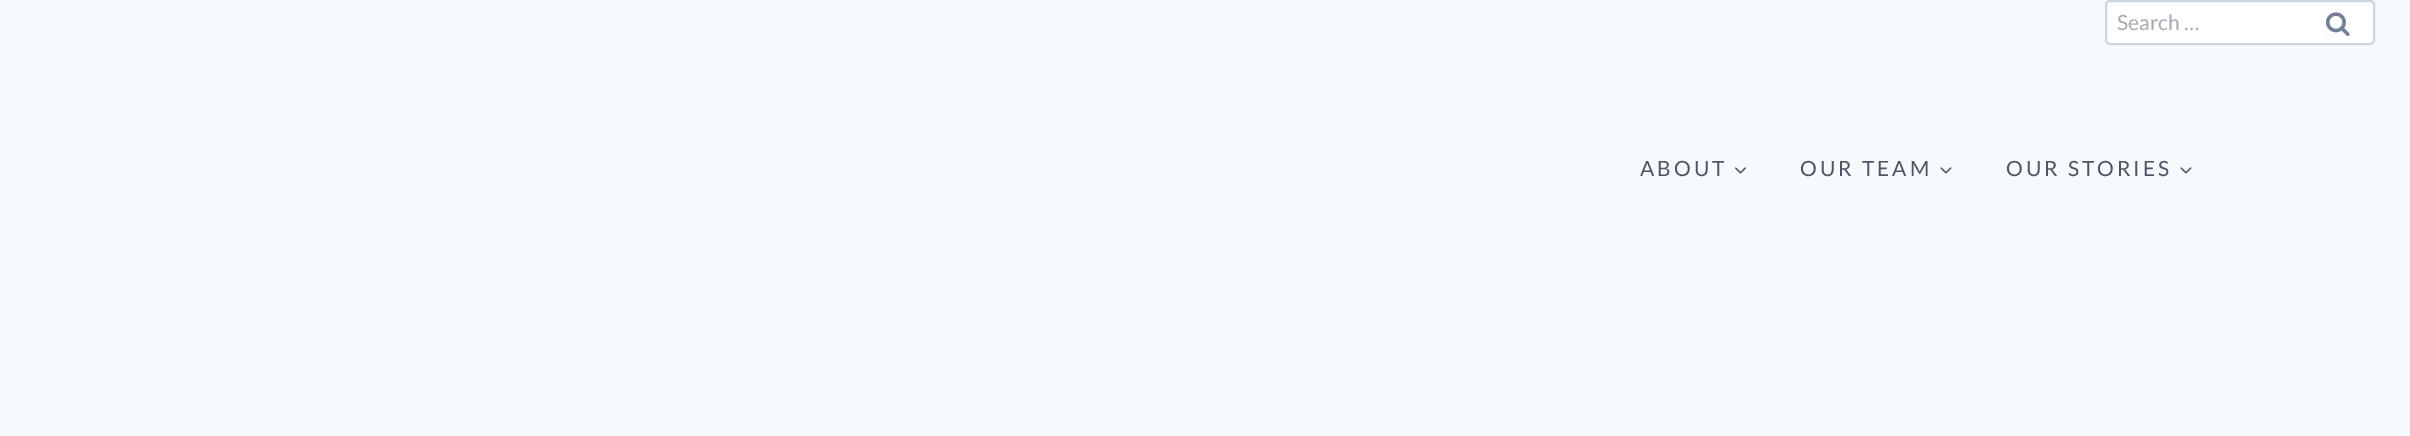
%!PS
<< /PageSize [2410 436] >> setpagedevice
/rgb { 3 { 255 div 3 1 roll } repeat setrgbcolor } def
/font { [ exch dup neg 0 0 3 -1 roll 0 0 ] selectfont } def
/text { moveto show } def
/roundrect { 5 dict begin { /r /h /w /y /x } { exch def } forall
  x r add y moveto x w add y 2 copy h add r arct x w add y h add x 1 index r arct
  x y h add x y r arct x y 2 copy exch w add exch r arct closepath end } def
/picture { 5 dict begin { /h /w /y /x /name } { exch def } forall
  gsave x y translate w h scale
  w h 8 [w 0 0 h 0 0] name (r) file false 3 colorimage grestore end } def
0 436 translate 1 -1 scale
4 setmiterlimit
247 250 252 rgb
0 0 2410 436 rectfill
255 255 255 rgb
2106 1 268 43 4 roundrect gsave fill grestore
203 213 224 rgb
2 setlinewidth
stroke
(img_01.rgb) 2325 12 25 24 picture
(img_02.rgb) 1735 167 11 7 picture
(img_03.rgb) 1940 167 12 7 picture
(img_03.rgb) 2180 167 12 7 picture
/Lato-Regular 21 font
165 170 180 rgb
(Search …) 2117 30 text
74 85 104 rgb
1640 176 moveto 3 0 (ABOUT) ashow
1800 176 moveto 3 0 (OUR TEAM) ashow
2006 176 moveto 3 0 (OUR STORIES) ashow
showpage
